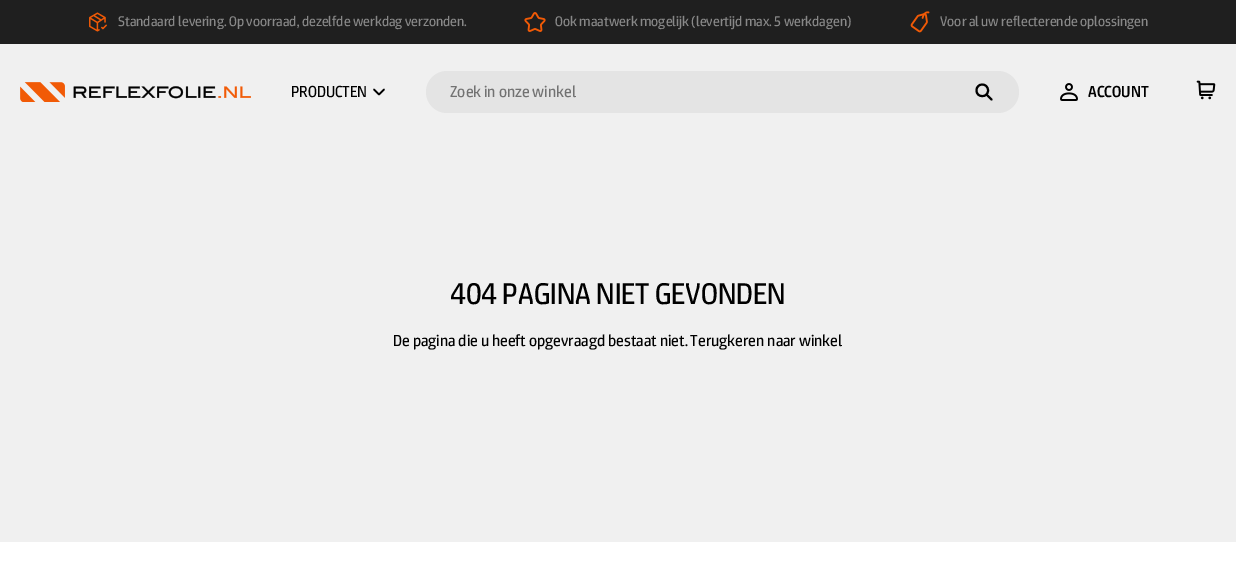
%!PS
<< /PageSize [1236 579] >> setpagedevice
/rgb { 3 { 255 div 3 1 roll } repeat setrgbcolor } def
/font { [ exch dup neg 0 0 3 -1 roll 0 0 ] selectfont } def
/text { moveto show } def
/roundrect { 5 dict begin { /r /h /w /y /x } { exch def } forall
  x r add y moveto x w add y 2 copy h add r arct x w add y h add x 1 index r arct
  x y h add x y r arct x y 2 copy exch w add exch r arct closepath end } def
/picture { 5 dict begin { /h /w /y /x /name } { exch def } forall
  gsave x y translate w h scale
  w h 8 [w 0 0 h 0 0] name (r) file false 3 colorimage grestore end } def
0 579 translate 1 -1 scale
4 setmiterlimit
240 240 240 rgb
0 0 1236 579 rectfill
31 31 31 rgb
0 0 1236 44 rectfill
(img_01.rgb) 89 12 18 20 picture
(img_02.rgb) 524 12 22 20 picture
(img_03.rgb) 910 11 20 22 picture
(img_04.rgb) 20 82 231 20 picture
0 0 0 rgb
1.7 setlinewidth
1 setlinecap
1 setlinejoin
374 89.5 moveto 5 5 rlineto 5 -5 rlineto stroke
228 228 228 rgb
426 71 593 42 21 roundrect fill
0 0 0 rgb
2 setlinewidth
991.5 99.5 moveto -5 -5 rlineto 988 90.5 moveto 0 7.5 -11.5 7.5 -11.5 0 rcurveto 0 -8 11.5 -8 11.5 0 rcurveto closepath stroke
(img_05.rgb) 1060 83 18 18 picture
(img_06.rgb) 1196 80 20 20 picture
255 255 255 rgb
0 542 1236 37 rectfill
/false-Regular 14 font
136 136 136 rgb
(Standaard levering. Op voorraad, dezelfde werkdag verzonden.) 118 26 text
(Ook maatwerk mogelijk \(levertijd max. 5 werkdagen\)) 555 26 text
(Voor al uw reflecterende oplossingen) 940 26 text
/false-Regular 16 font
0 0 0 rgb
(PRODUCTEN) 291 97 text
114 114 114 rgb
(Zoek in onze winkel) 450 97 text
/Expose-Medium 16 font
0 0 0 rgb
(ACCOUNT) 1088 97 text
/false-Regular 30 font
(404 PAGINA NIET GEVONDEN) 450 304 text
/false-Regular 16 font
(De pagina die u heeft opgevraagd bestaat niet. Terugkeren naar winkel) 393 346 text
showpage
